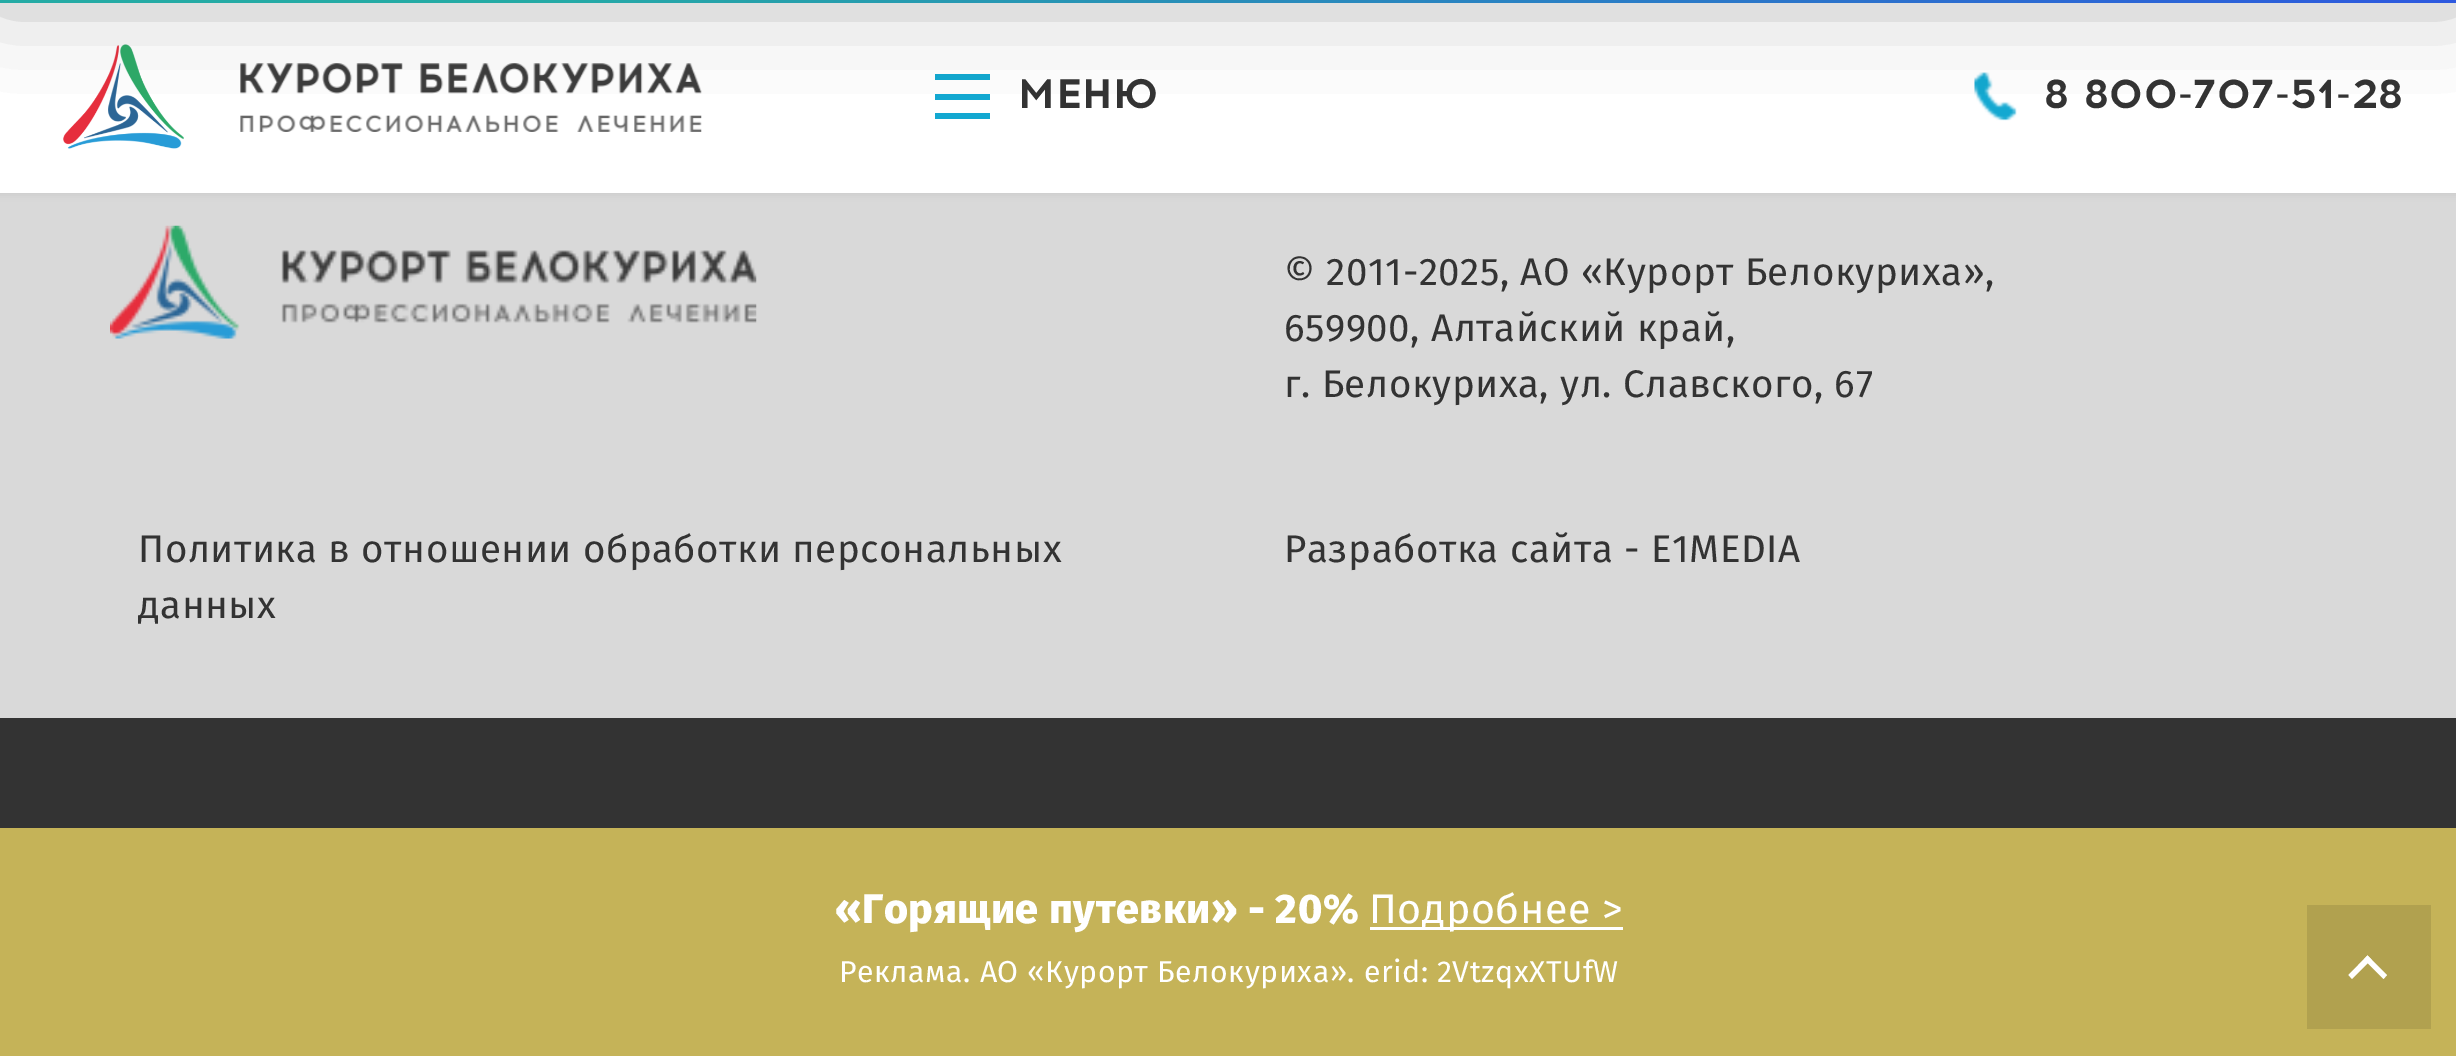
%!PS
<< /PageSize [2456 1056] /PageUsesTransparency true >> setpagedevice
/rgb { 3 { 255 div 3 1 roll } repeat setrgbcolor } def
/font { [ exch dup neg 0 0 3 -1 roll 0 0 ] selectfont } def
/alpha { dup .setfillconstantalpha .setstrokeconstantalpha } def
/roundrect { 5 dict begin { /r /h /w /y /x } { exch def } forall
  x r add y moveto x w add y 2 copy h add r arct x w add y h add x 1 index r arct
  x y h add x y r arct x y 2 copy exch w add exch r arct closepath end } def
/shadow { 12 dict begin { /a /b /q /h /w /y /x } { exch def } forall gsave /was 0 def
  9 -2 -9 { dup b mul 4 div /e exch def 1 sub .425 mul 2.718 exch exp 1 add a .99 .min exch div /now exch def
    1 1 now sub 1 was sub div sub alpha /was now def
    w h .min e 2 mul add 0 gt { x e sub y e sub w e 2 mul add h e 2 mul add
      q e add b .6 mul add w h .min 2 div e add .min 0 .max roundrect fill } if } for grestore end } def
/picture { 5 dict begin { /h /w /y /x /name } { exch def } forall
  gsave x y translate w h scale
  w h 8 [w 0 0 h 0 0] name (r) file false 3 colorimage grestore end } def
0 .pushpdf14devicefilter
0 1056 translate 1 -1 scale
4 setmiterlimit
217 217 217 rgb
0 0 2456 1056 rectfill
0 0 0 rgb
-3 -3 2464 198 0 4 0.06 shadow
255 255 255 rgb
0 3 2456 190 rectfill
gsave 0 0 moveto 2456 0 rlineto 0 3 rlineto -2456 0 rlineto closepath clip newpath
<< /ShadingType 2 /ColorSpace /DeviceRGB /Coords [0 1.4 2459 1.4] /Extend [true true] /Function << /FunctionType 3 /Domain [0 1] /Functions [<< /FunctionType 2 /Domain [0 1] /C0 [0.161 0.765 0.729] /C1 [0.161 0.765 0.729] /N 1 >> << /FunctionType 2 /Domain [0 1] /C0 [0.161 0.765 0.729] /C1 [0.2 0.4 1] /N 1 >>] /Bounds [0.2] /Encode [0 1 0 1] >> >> shfill grestore
(img_01.rgb) 63 44 121 105 picture
(img_02.rgb) 240 63 462 69 picture
19 168 209 rgb
935 74 55 6 rectfill
935 94 55 6 rectfill
935 113 55 6 rectfill
(img_03.rgb) 1974 72 43 49 picture
0 0 0 rgb
-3 -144 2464 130 0 48 0.2 shadow
-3 -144 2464 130 0 48 0.2 shadow
(img_04.rgb) 110 225 647 114 picture
51 51 51 rgb
0 718 2456 110 rectfill
197 179 88 rgb
0 828 2456 228 rectfill
255 255 255 rgb
1370 927 253 3 rectfill
177 161 79 rgb
2307 905 124 124 rectfill
255 255 255 rgb
2352 979 moveto -3.5 -4 rlineto 19 -19.5 rlineto 4 4 rlineto closepath fill
2383.5 979 moveto -19.5 -19.5 rlineto 3.5 -4 rlineto 19.5 19.5 rlineto closepath fill
/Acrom-Bold 41.25 font
51 51 51 rgb
1018 108 moveto 0.55 0 (МЕНЮ) ashow
2044 108 moveto 0.55 0 (8 800-707-51-28) ashow
/FiraSans-Regular 38.5 font
1284 285 moveto 0.55 0 (© 2011-2025, АО «Курорт Белокуриха»,) ashow
1284 341 moveto 0.55 0 (659900, Алтайский край,) ashow
1284 397 moveto 0.55 0 (г. Белокуриха, ул. Славского, 67) ashow
138 562 moveto 0.55 0 (Политика в отношении обработки персональных) ashow
138 618 moveto 0.55 0 (данных) ashow
1284 562 moveto 0.55 0 (Разработка сайта - E1MEDIA) ashow
/FiraSans-ExtraBold 41.25 font
255 255 255 rgb
835 923 moveto 0.55 0 («Горящие путевки» - 20%) ashow
/FiraSans-Regular 41.25 font
1369 923 moveto 0.55 0 (Подробнее >) ashow
/FiraSans-Regular 30.25 font
839 982 moveto 0.55 0 (Реклама. АО «Курорт Белокуриха». erid: 2VtzqxXTUfW) ashow
.poppdf14devicefilter showpage
